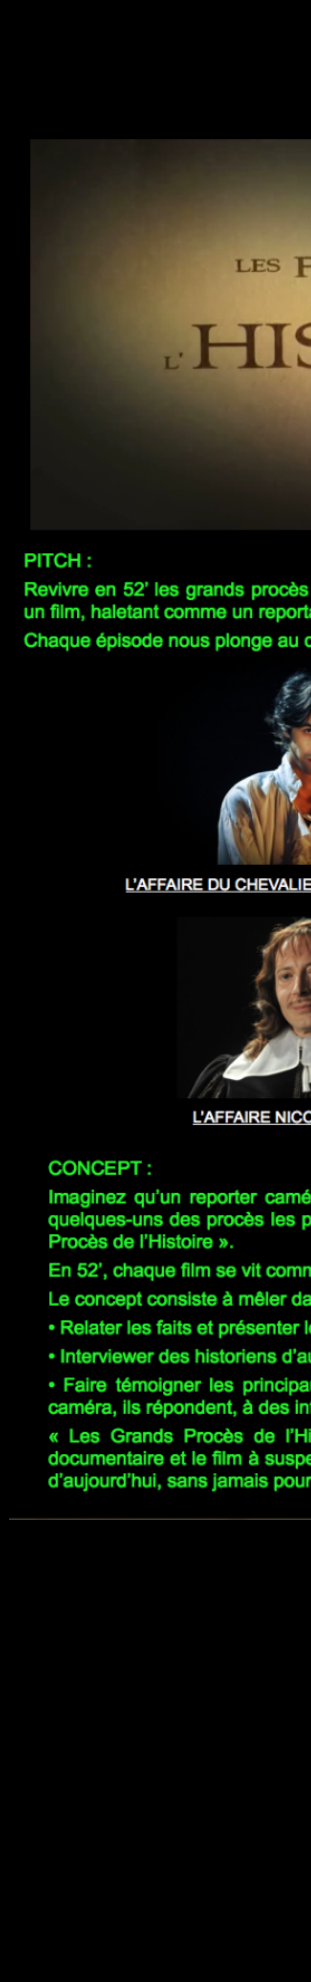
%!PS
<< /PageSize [311 1982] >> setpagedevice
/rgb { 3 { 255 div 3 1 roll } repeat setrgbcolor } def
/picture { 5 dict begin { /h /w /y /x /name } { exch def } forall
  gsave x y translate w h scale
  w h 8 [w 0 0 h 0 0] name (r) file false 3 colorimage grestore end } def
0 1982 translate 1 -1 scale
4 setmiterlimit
0 0 0 rgb
0 0 311 1982 rectfill
(img_01.rgb) 9 139 302 1381 picture
showpage
